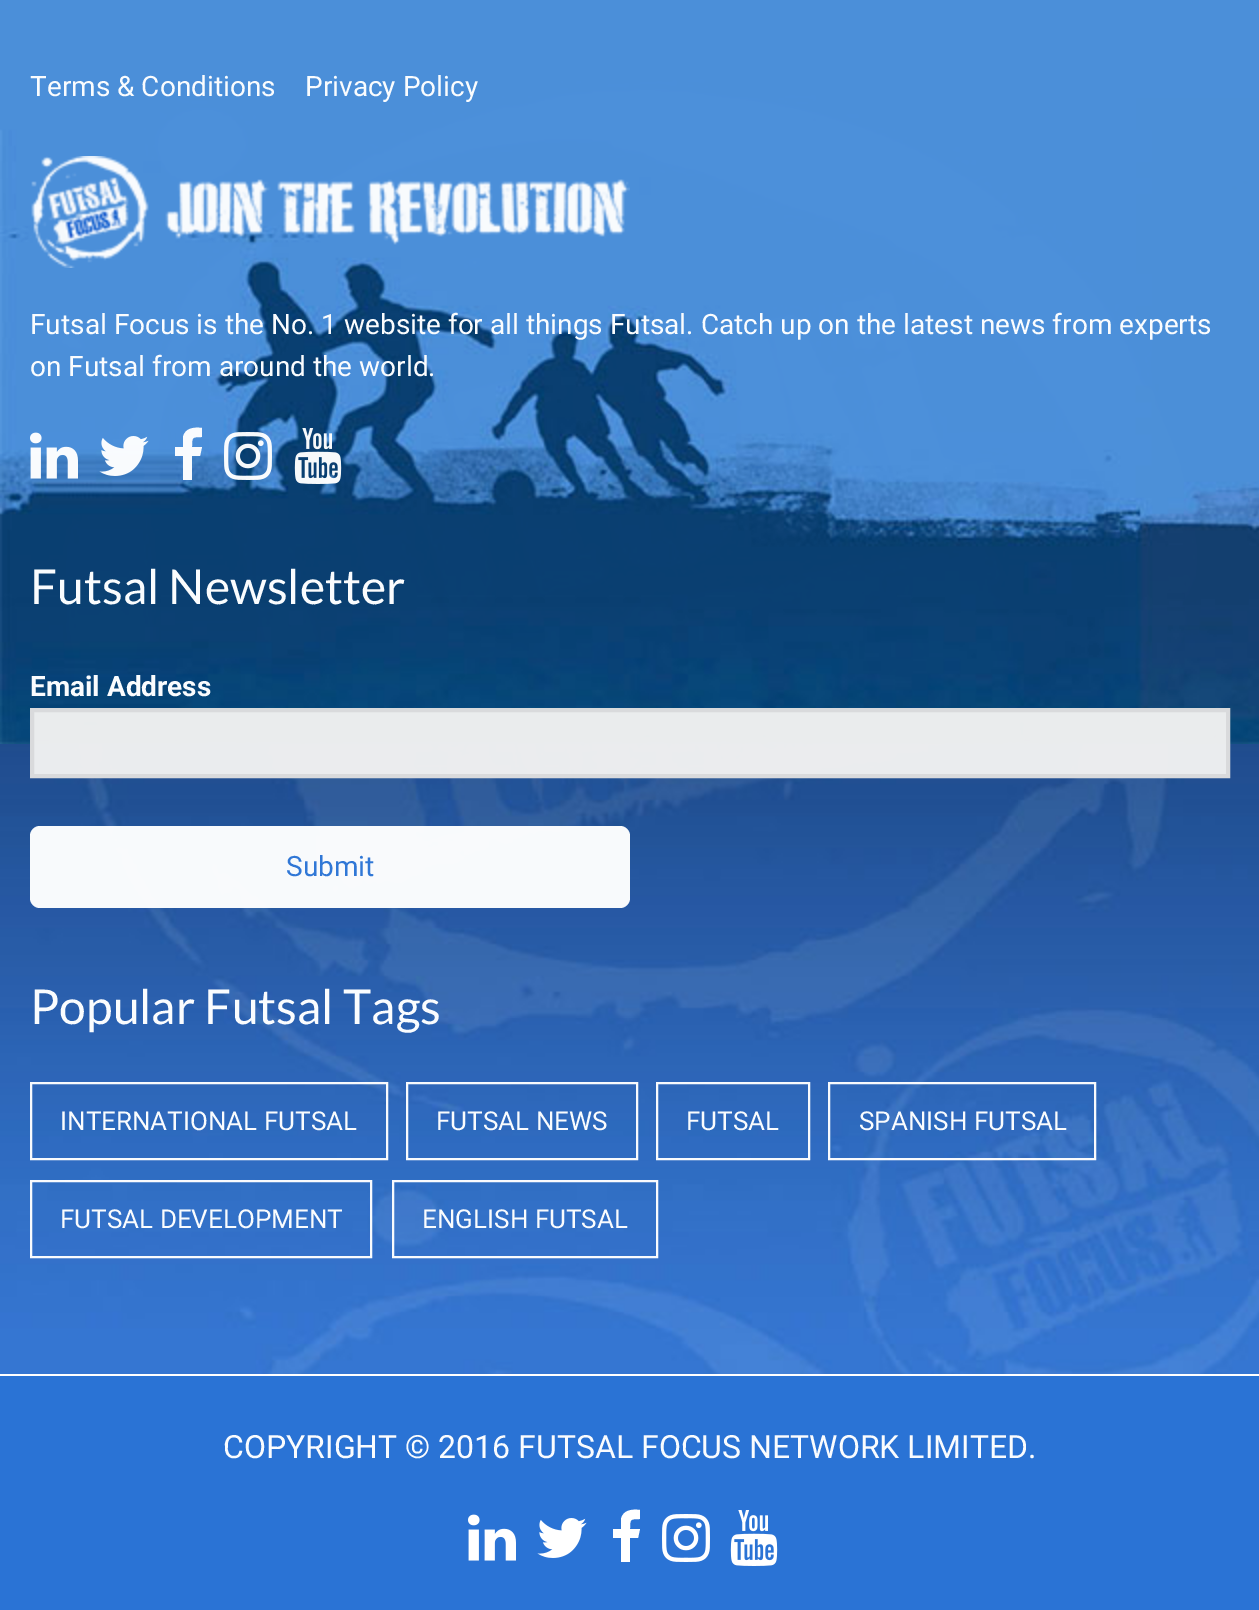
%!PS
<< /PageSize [1259 1610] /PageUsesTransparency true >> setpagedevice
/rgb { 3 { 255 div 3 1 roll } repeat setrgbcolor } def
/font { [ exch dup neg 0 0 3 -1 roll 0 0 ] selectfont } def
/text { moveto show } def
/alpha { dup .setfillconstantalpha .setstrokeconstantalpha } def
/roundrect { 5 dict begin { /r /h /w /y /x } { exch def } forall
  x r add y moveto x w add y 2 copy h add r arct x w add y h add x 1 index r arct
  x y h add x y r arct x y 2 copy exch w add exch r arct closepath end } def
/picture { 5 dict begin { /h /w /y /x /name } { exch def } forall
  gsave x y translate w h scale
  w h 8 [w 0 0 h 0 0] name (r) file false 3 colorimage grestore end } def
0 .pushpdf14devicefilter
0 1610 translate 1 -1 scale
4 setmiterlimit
255 255 255 rgb
0 0 1259 1610 rectfill
(img_01.rgb) 0 0 1259 1374 picture
(img_02.rgb) 0 0 1259 744 picture
(img_03.rgb) 31 156 599 112 picture
(img_04.rgb) 30 432 48 47 picture
(img_05.rgb) 99 436 50 40 picture
0.97 alpha
202 428 moveto 0 9 rlineto -10 0 -10 0 -10 10 rcurveto 10 0 rlineto -2 9 rlineto -8 0 rlineto 0 24 rlineto -9 0 rlineto 0 -24 rlineto -8 0 rlineto 0 -9 rlineto 8 0 rlineto 0 -10 rlineto 2 -9 11 -10 19 -9 rcurveto closepath fill
1 alpha
(img_06.rgb) 224 432 48 48 picture
(img_07.rgb) 294 428 48 56 picture
0.97 alpha
241 241 241 rgb
32 710 moveto 1196 0 rlineto 0 66 rlineto -1196 0 rlineto closepath fill
1 alpha
217 218 220 rgb
4 setlinewidth
32 710 moveto 1196 0 rlineto 0 66 rlineto -1196 0 rlineto closepath stroke
0.97 alpha
255 255 255 rgb
30 826 600 82 10 roundrect fill
2 setlinewidth
31 1083 356 76 rectstroke
407 1083 230 76 rectstroke
657 1083 152 76 rectstroke
829 1083 266 76 rectstroke
31 1181 340 76 rectstroke
393 1181 264 76 rectstroke
1 alpha
42 115 213 rgb
0 1376 1259 234 rectfill
(img_08.rgb) 468 1514 48 47 picture
(img_09.rgb) 537 1518 50 40 picture
255 255 255 rgb
640 1510 moveto 0 9 rlineto -10 0 -10 0 -10 10 rcurveto 10 0 rlineto -2 9 rlineto -8 0 rlineto 0 24 rlineto -9 0 rlineto 0 -24 rlineto -8 0 rlineto 0 -9 rlineto 8 0 rlineto 0 -10 rlineto 2 -9 11 -10 19 -9 rcurveto closepath fill
(img_10.rgb) 662 1514 48 48 picture
(img_11.rgb) 730 1510 48 56 picture
/Roboto-Regular 28 font
250 252 254 rgb
(Terms & Conditions) 30 96 text
(Privacy Policy) 305 96 text
(Futsal Focus is the No. 1 website for all things Futsal. Catch up on the latest news from experts) 30 334 text
(on Futsal from around the world.) 30 376 text
/Lato-Regular 48 font
(Futsal Newsletter) 30 604 text
/Roboto-Bold 28 font
(Email Address) 30 696 text
/Roboto-Regular 28 font
48 119 214 rgb
(Submit) 286 876 text
/Lato-Regular 48 font
250 252 254 rgb
(Popular Futsal Tags) 30 1024 text
/Roboto-Regular 26 font
(INTERNATIONAL FUTSAL) 60 1130 text
(FUTSAL NEWS) 436 1130 text
(FUTSAL) 686 1130 text
(SPANISH FUTSAL) 859 1130 text
(FUTSAL DEVELOPMENT) 60 1228 text
(ENGLISH FUTSAL) 422 1228 text
/Roboto-Regular 32 font
(COPYRIGHT © 2016 FUTSAL FOCUS NETWORK LIMITED.) 223 1458 text
.poppdf14devicefilter showpage
